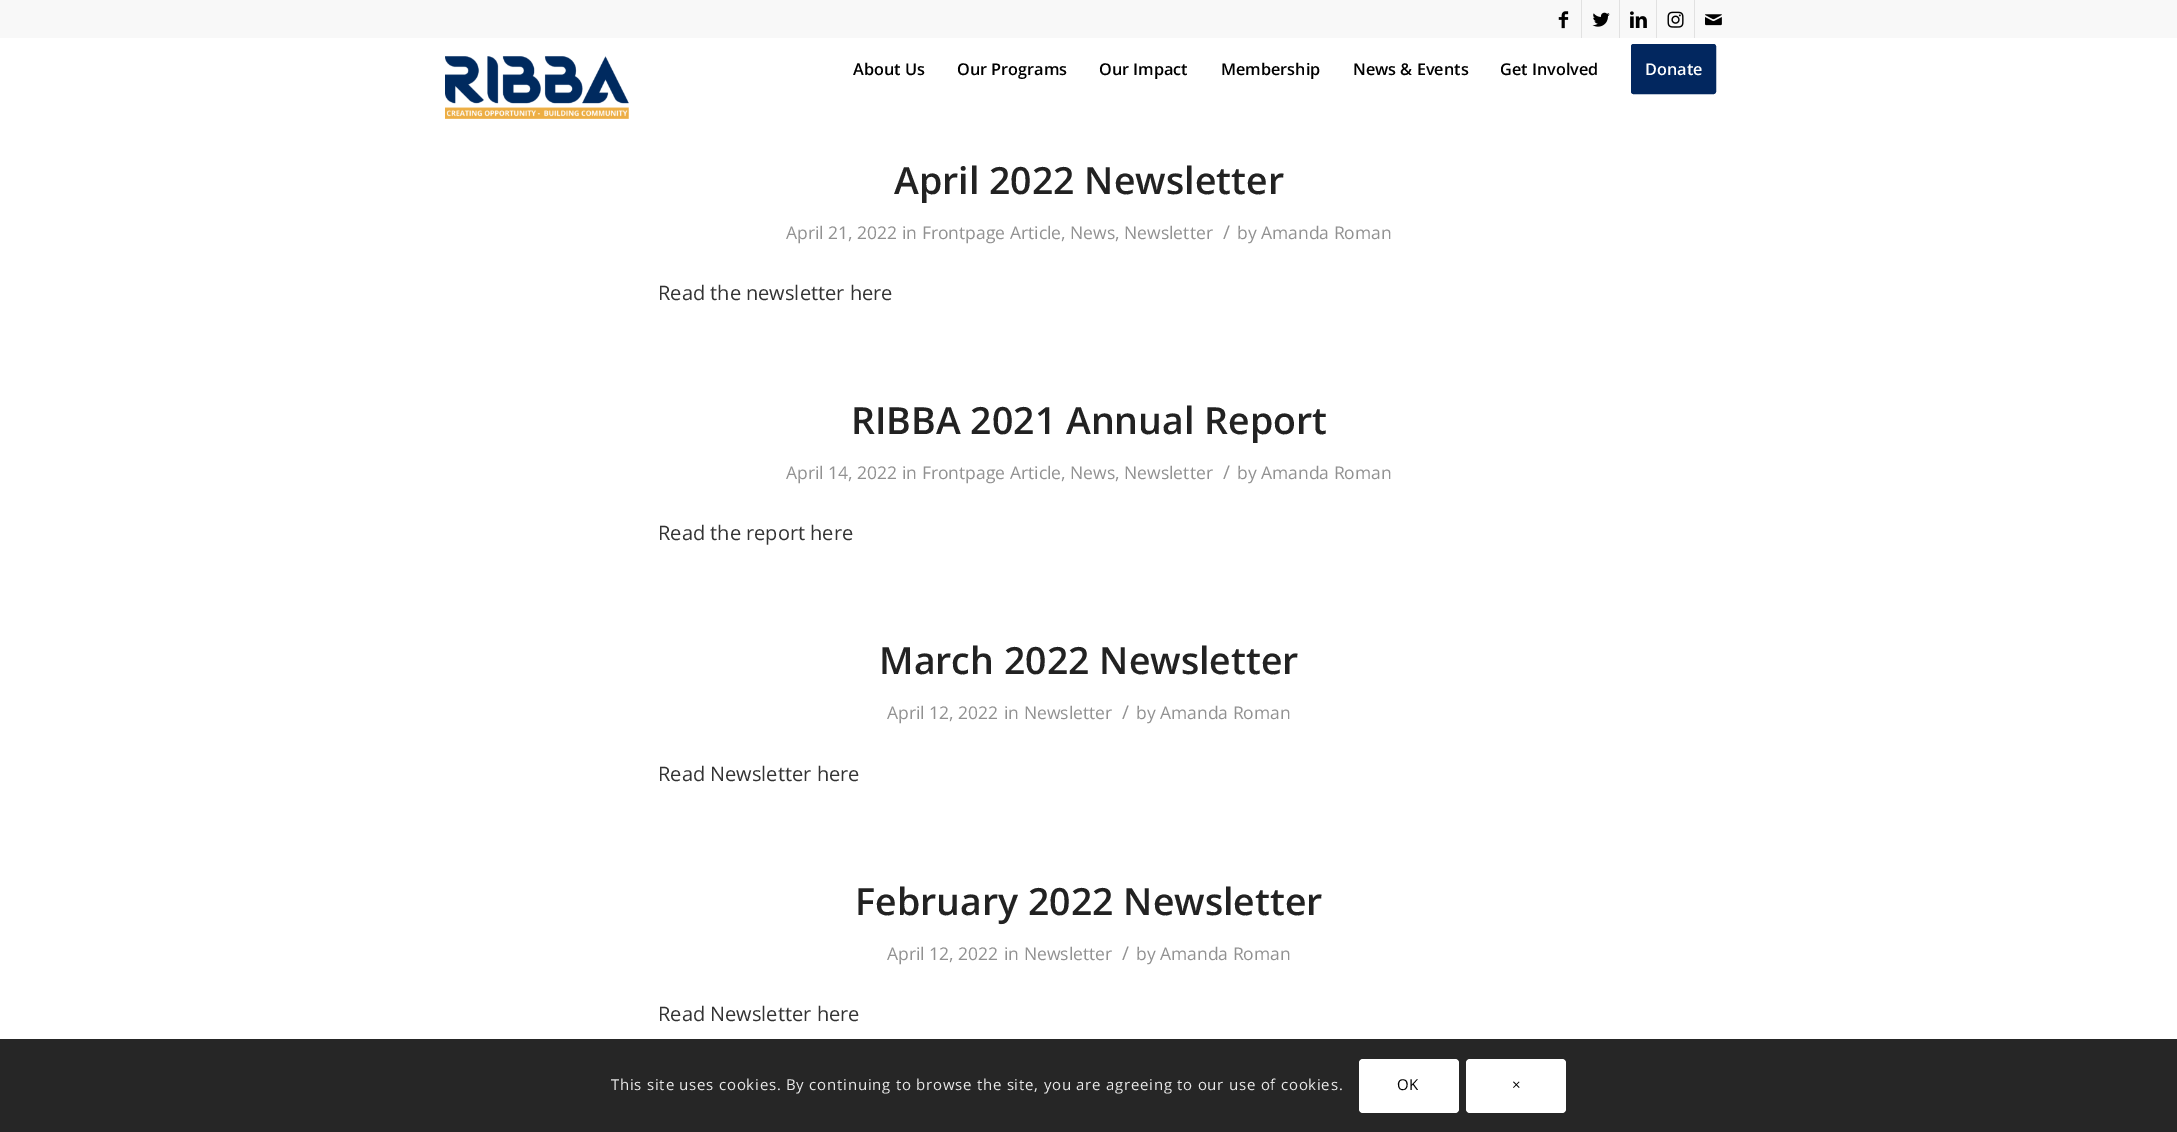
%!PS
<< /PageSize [2177 1132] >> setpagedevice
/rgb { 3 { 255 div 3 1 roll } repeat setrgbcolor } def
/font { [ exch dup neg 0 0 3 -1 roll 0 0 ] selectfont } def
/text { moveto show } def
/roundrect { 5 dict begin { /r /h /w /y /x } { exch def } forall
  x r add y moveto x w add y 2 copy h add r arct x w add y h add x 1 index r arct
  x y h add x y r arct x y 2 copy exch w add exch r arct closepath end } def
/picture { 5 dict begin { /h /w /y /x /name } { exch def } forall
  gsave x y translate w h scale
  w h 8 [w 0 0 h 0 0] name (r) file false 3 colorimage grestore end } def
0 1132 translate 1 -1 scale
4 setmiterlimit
255 255 255 rgb
0 0 2177 1132 rectfill
248 248 248 rgb
0 0 2177 38 rectfill
225 225 225 rgb
1581 0 1 38 rectfill
(img_01.rgb) 1558 11 11 18 picture
1619 0 1 38 rectfill
(img_02.rgb) 1592 12 18 15 picture
1656 0 1 38 rectfill
(img_03.rgb) 1630 11 17 17 picture
1694 0 1 38 rectfill
(img_04.rgb) 1667 11 17 17 picture
(img_05.rgb) 1705 14 17 12 picture
(img_06.rgb) 445 56 184 63 picture
2 39 95 rgb
1632.5 45.5 82 47 1 roundrect gsave fill grestore
3 setlinewidth
stroke
38 38 38 rgb
0 1039 2177 93 rectfill
255 255 255 rgb
1359 1059 100 54 4 roundrect fill
1466 1059 100 54 4 roundrect fill
/OpenSans-SemiBold 16.25 font
0 0 0 rgb
(About Us) 853 75 text
(Our Programs) 957 75 text
(Our Impact) 1099 75 text
(Membership) 1221 75 text
(News & Events) 1353 75 text
(Get Involved) 1500 75 text
255 255 255 rgb
(Donate) 1645 75 text
/OpenSans-SemiBold 37.5 font
34 34 34 rgb
(April 2022 Newsletter) 894 194 text
/OpenSans-Regular 17.5 font
145 145 145 rgb
(April 21, 2022) 786 239 text
(in Frontpage Article, News, Newsletter) 902 239 text
/OpenSans-Regular 19 font
(/) 1223 239 text
/OpenSans-Regular 17.5 font
(by Amanda Roman) 1237 239 text
/OpenSans-Regular 20 font
51 51 51 rgb
(Read the newsletter here) 658 300 text
/OpenSans-SemiBold 37.5 font
34 34 34 rgb
(RIBBA 2021 Annual Report) 851 434 text
/OpenSans-Regular 17.5 font
145 145 145 rgb
(April 14, 2022) 786 479 text
(in Frontpage Article, News, Newsletter) 902 479 text
/OpenSans-Regular 19 font
(/) 1223 479 text
/OpenSans-Regular 17.5 font
(by Amanda Roman) 1237 479 text
/OpenSans-Regular 20 font
51 51 51 rgb
(Read the report here) 658 540 text
/OpenSans-SemiBold 37.5 font
34 34 34 rgb
(March 2022 Newsletter) 879 674 text
/OpenSans-Regular 17.5 font
145 145 145 rgb
(April 12, 2022) 887 719 text
(in Newsletter) 1004 719 text
/OpenSans-Regular 19 font
(/) 1122 719 text
/OpenSans-Regular 17.5 font
(by Amanda Roman) 1136 719 text
/OpenSans-Regular 20 font
51 51 51 rgb
(Read Newsletter here) 658 781 text
/OpenSans-SemiBold 37.5 font
34 34 34 rgb
(February 2022 Newsletter) 855 915 text
/OpenSans-Regular 17.5 font
145 145 145 rgb
(April 12, 2022) 887 960 text
(in Newsletter) 1004 960 text
/OpenSans-Regular 19 font
(/) 1122 960 text
/OpenSans-Regular 17.5 font
(by Amanda Roman) 1136 960 text
/OpenSans-Regular 20 font
51 51 51 rgb
(Read Newsletter here) 658 1021 text
/OpenSans-Regular 15 font
233 233 233 rgb
611 1090 moveto 0.75 0 (This site uses cookies. By continuing to browse the site, you are agreeing to our use of cookies.) ashow
0 0 0 rgb
1397 1090 moveto 0.75 0 (OK) ashow
1512 1090 moveto 0.75 0 (×) ashow
showpage
